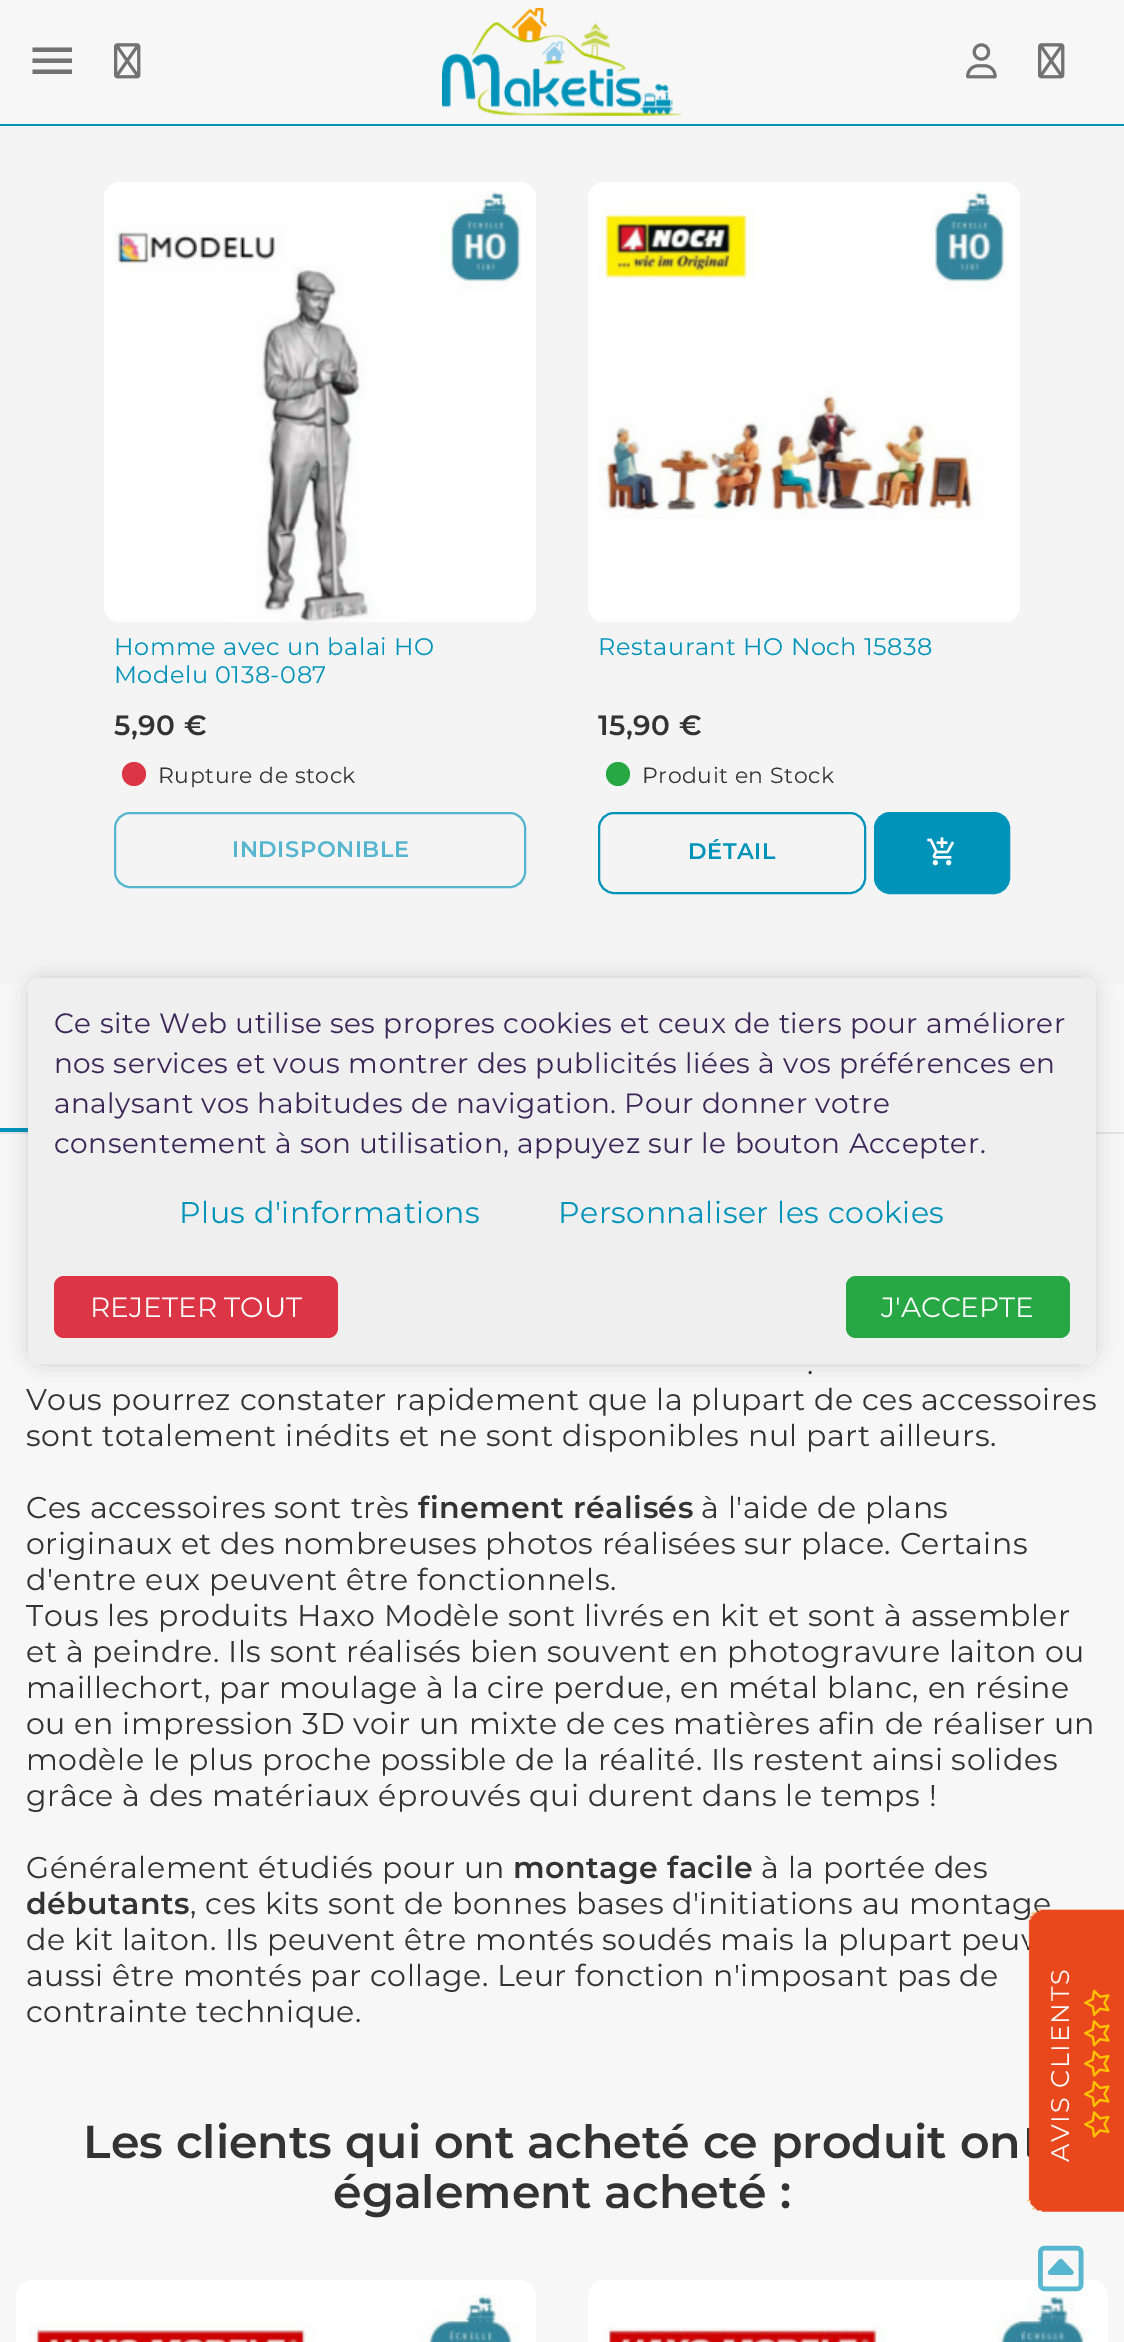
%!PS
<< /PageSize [1124 2342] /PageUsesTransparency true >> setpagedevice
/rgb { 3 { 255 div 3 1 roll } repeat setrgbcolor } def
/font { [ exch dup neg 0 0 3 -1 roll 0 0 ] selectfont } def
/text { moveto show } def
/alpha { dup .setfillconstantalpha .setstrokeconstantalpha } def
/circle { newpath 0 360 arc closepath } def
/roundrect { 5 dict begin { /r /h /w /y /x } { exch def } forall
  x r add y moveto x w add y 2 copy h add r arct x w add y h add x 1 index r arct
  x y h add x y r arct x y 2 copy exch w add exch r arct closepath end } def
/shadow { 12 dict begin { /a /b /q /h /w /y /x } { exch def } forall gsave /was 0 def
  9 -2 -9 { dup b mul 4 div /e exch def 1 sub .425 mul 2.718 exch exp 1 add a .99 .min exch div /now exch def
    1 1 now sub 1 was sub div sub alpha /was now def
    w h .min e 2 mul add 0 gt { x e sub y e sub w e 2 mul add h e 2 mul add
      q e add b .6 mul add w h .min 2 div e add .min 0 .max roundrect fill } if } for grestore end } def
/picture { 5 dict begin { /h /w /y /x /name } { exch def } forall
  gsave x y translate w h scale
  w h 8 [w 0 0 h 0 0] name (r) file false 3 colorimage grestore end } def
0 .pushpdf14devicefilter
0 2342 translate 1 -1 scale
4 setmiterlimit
247 247 247 rgb
0 0 1124 2342 rectfill
0 147 185 rgb
0 124 1124 2 rectfill
114 114 114 rgb
32.5 74 moveto 39.5 0 rlineto 0 -4.5 rlineto -39.5 0 rlineto closepath 32.5 63 moveto 39.5 0 rlineto 0 -4.5 rlineto -39.5 0 rlineto closepath 32.5 47.5 moveto 0 4.5 rlineto 39.5 0 rlineto 0 -4.5 rlineto closepath fill
(img_01.rgb) 114 43 27 36 picture
(img_02.rgb) 442 8 240 108 picture
(img_03.rgb) 966 43 31 36 picture
(img_01.rgb) 1038 43 27 36 picture
244 244 244 rgb
0 126 1124 858 rectfill
255 255 255 rgb
104 182 432 440 16 roundrect fill
(img_04.rgb) 114 191 408 431 picture
220 53 69 rgb
134 774 12 circle fill
85 181 206 rgb
2 setlinewidth
115 813 410 74 15 roundrect stroke
255 255 255 rgb
588 182 432 440 16 roundrect fill
(img_05.rgb) 598 190 409 329 picture
40 167 69 rgb
618 774 12 circle fill
0 147 185 rgb
599 813 266 80 15 roundrect stroke
875 813 134 80 15 roundrect gsave fill grestore
stroke
(img_06.rgb) 927 837 28 29 picture
227 227 227 rgb
0 1132 1124 2 rectfill
0 147 185 rgb
0 1128 28 4 rectfill
255 255 255 rgb
16 2280 520 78 16 roundrect fill
(img_07.rgb) 28 2294 491 48 picture
588 2280 520 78 16 roundrect fill
(img_08.rgb) 602 2295 489 47 picture
0 0 0 rgb
28 978 1068 386 16 10 0.16 shadow
239 239 239 rgb
28 978 1068 386 10 roundrect fill
220 53 69 rgb
54 1276 284 62 10 roundrect fill
40 167 69 rgb
846 1276 224 62 10 roundrect fill
(img_15.rgb) 1038 2245 46 47 picture
/Montserrat-Regular 24 font
0 147 185 rgb
114 655 moveto 0.5 0 (Homme avec un balai HO) ashow
114 683 moveto 0.5 0 (Modelu 0138-087) ashow
/Montserrat-SemiBold 28 font
51 51 51 rgb
114 735 moveto 0.5 0 (5,90 €) ashow
/Montserrat-Regular 22 font
158 783 moveto 0.5 0 (Rupture de stock) ashow
/Montserrat-SemiBold 22.5 font
85 181 206 rgb
232 857 moveto 0.5 0 (INDISPONIBLE) ashow
/Montserrat-Regular 24 font
0 147 185 rgb
598 655 moveto 0.5 0 (Restaurant HO Noch 15838) ashow
/Montserrat-SemiBold 28 font
51 51 51 rgb
598 735 moveto 0.5 0 (15,90 €) ashow
/Montserrat-Regular 22 font
642 783 moveto 0.5 0 (Produit en Stock) ashow
/Montserrat-SemiBold 22.5 font
0 147 185 rgb
688 859 moveto 0.5 0 (DÉTAIL) ashow
/Montserrat-Regular 30 font
51 51 51 rgb
807 1374 moveto 0.5 0 (.) ashow
26 1410 moveto 0.5 0 (Vous pourrez constater rapidement que la plupart de ces accessoires) ashow
26 1446 moveto 0.5 0 (sont totalement inédits et ne sont disponibles nul part ailleurs.) ashow
26 1518 moveto 0.5 0 (Ces accessoires sont très) ashow
/Montserrat-SemiBold 30 font
418 1518 moveto 0.5 0 (finement réalisés) ashow
/Montserrat-Regular 30 font
701 1518 moveto 0.5 0 (à l'aide de plans) ashow
26 1554 moveto 0.5 0 (originaux et des nombreuses photos réalisées sur place. Certains) ashow
26 1590 moveto 0.5 0 (d'entre eux peuvent être fonctionnels.) ashow
26 1626 moveto 0.5 0 (Tous les produits Haxo Modèle sont livrés en kit et sont à assembler) ashow
26 1662 moveto 0.5 0 (et à peindre. Ils sont réalisés bien souvent en photogravure laiton ou) ashow
26 1698 moveto 0.5 0 (maillechort, par moulage à la cire perdue, en métal blanc, en résine) ashow
26 1734 moveto 0.5 0 (ou en impression 3D voir un mixte de ces matières afin de réaliser un) ashow
26 1770 moveto 0.5 0 (modèle le plus proche possible de la réalité. Ils restent ainsi solides) ashow
26 1806 moveto 0.5 0 (grâce à des matériaux éprouvés qui durent dans le temps !) ashow
26 1878 moveto 0.5 0 (Généralement étudiés pour un) ashow
/Montserrat-SemiBold 30 font
513 1878 moveto 0.5 0 (montage facile) ashow
/Montserrat-Regular 30 font
761 1878 moveto 0.5 0 (à la portée des) ashow
/Montserrat-SemiBold 30 font
26 1914 moveto 0.5 0 (débutants) ashow
/Montserrat-Regular 30 font
190 1914 moveto 0.5 0 (, ces kits sont de bonnes bases d'initiations au montage) ashow
26 1950 moveto 0.5 0 (de kit laiton. Ils peuvent être montés soudés mais la plupart peuv) ashow
26 1986 moveto 0.5 0 (aussi être montés par collage. Leur fonction n'imposant pas de) ashow
26 2022 moveto 0.5 0 (contrainte technique.) ashow
/Montserrat-SemiBold 46 font
(Les clients qui ont acheté ce produit on) 83 2158 text
(également acheté :) 333 2208 text
/Montserrat-Regular 28 font
60 38 88 rgb
54 1033 moveto 0.5 0 (Ce site Web utilise ses propres cookies et ceux de tiers pour améliorer) ashow
54 1073 moveto 0.5 0 (nos services et vous montrer des publicités liées à vos préférences en) ashow
54 1113 moveto 0.5 0 (analysant vos habitudes de navigation. Pour donner votre) ashow
54 1153 moveto 0.5 0 (consentement à son utilisation, appuyez sur le bouton Accepter.) ashow
/Montserrat-Regular 30 font
0 147 185 rgb
179 1223 moveto 0.5 0 (Plus d'informations) ashow
558 1223 moveto 0.5 0 (Personnaliser les cookies) ashow
/Montserrat-Regular 28 font
251 251 251 rgb
(REJETER TOUT) 90 1317 text
(J'ACCEPTE) 881 1317 text
(img_09.rgb) 1027 1908 97 304 picture
/Montserrat-Regular 25.5 font
gsave 1069 2162 translate -90 rotate 0 0 moveto 1.6 0 (AVIS CLIENTS) ashow grestore
(img_10.rgb) 1084 1989 26 27 picture
(img_11.rgb) 1084 2020 26 27 picture
(img_12.rgb) 1084 2050 26 27 picture
(img_13.rgb) 1084 2080 26 28 picture
(img_14.rgb) 1084 2111 26 27 picture
.poppdf14devicefilter showpage
